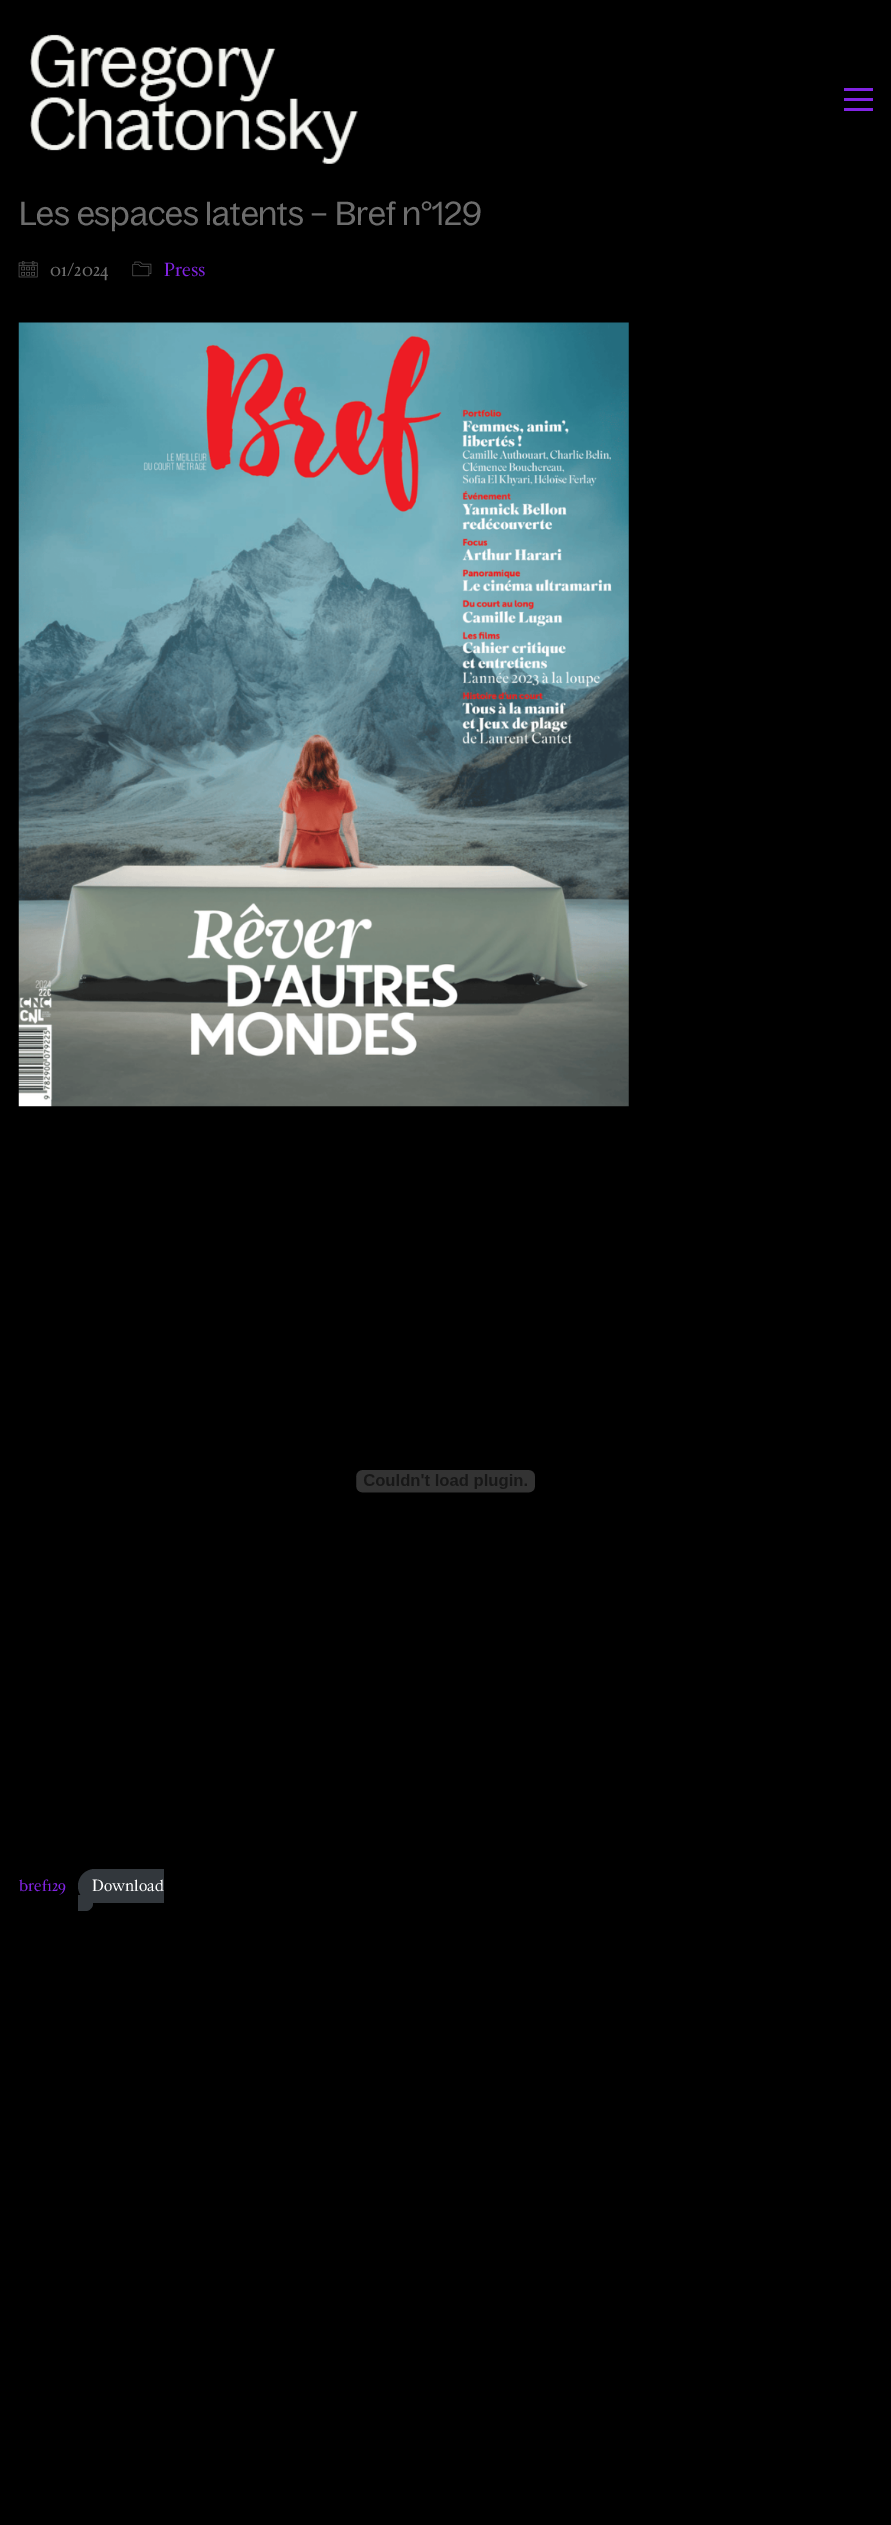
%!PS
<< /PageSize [891 2525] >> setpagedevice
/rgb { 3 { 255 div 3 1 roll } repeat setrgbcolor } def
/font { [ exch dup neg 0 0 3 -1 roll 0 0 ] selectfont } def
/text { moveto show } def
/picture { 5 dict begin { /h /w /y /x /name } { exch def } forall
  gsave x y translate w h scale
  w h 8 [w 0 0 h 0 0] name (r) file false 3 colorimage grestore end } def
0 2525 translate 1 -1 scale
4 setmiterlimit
0 0 0 rgb
0 0 891 2525 rectfill
(img_01.rgb) 30 34 328 130 picture
130 36 227 rgb
844 88 29 3 rectfill
844 98 29 3 rectfill
844 108 29 3 rectfill
(img_02.rgb) 18 261 20 17 picture
(img_03.rgb) 132 261 20 16 picture
(img_04.rgb) 18 322 611 785 picture
(img_05.rgb) 356 1470 179 23 picture
50 55 60 rgb
95 1869 moveto 69 0 rlineto 0 34 rlineto -69 0 rlineto -9.5 0 -17 -7.5 -17 -17 rcurveto 0 -9.5 7.5 -17 17 -17 rcurveto closepath fill
78 1895 moveto 7.5 0 rlineto 4 0 7.5 3.5 7.5 7.5 rcurveto 0 1 rlineto 0 4 -3.5 7.5 -7.5 7.5 rcurveto -7.5 0 rlineto closepath fill
/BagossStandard-Regular 32.5 font
109 109 109 rgb
(Les espaces latents – Bref n°129) 19 225 text
/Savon-Regular 17.5 font
(01/2024) 50 276 text
130 36 227 rgb
(Press) 164 276 text
/Savon-Regular 15 font
(bref129) 19 1891 text
255 255 255 rgb
(Download) 92 1891 text
showpage
